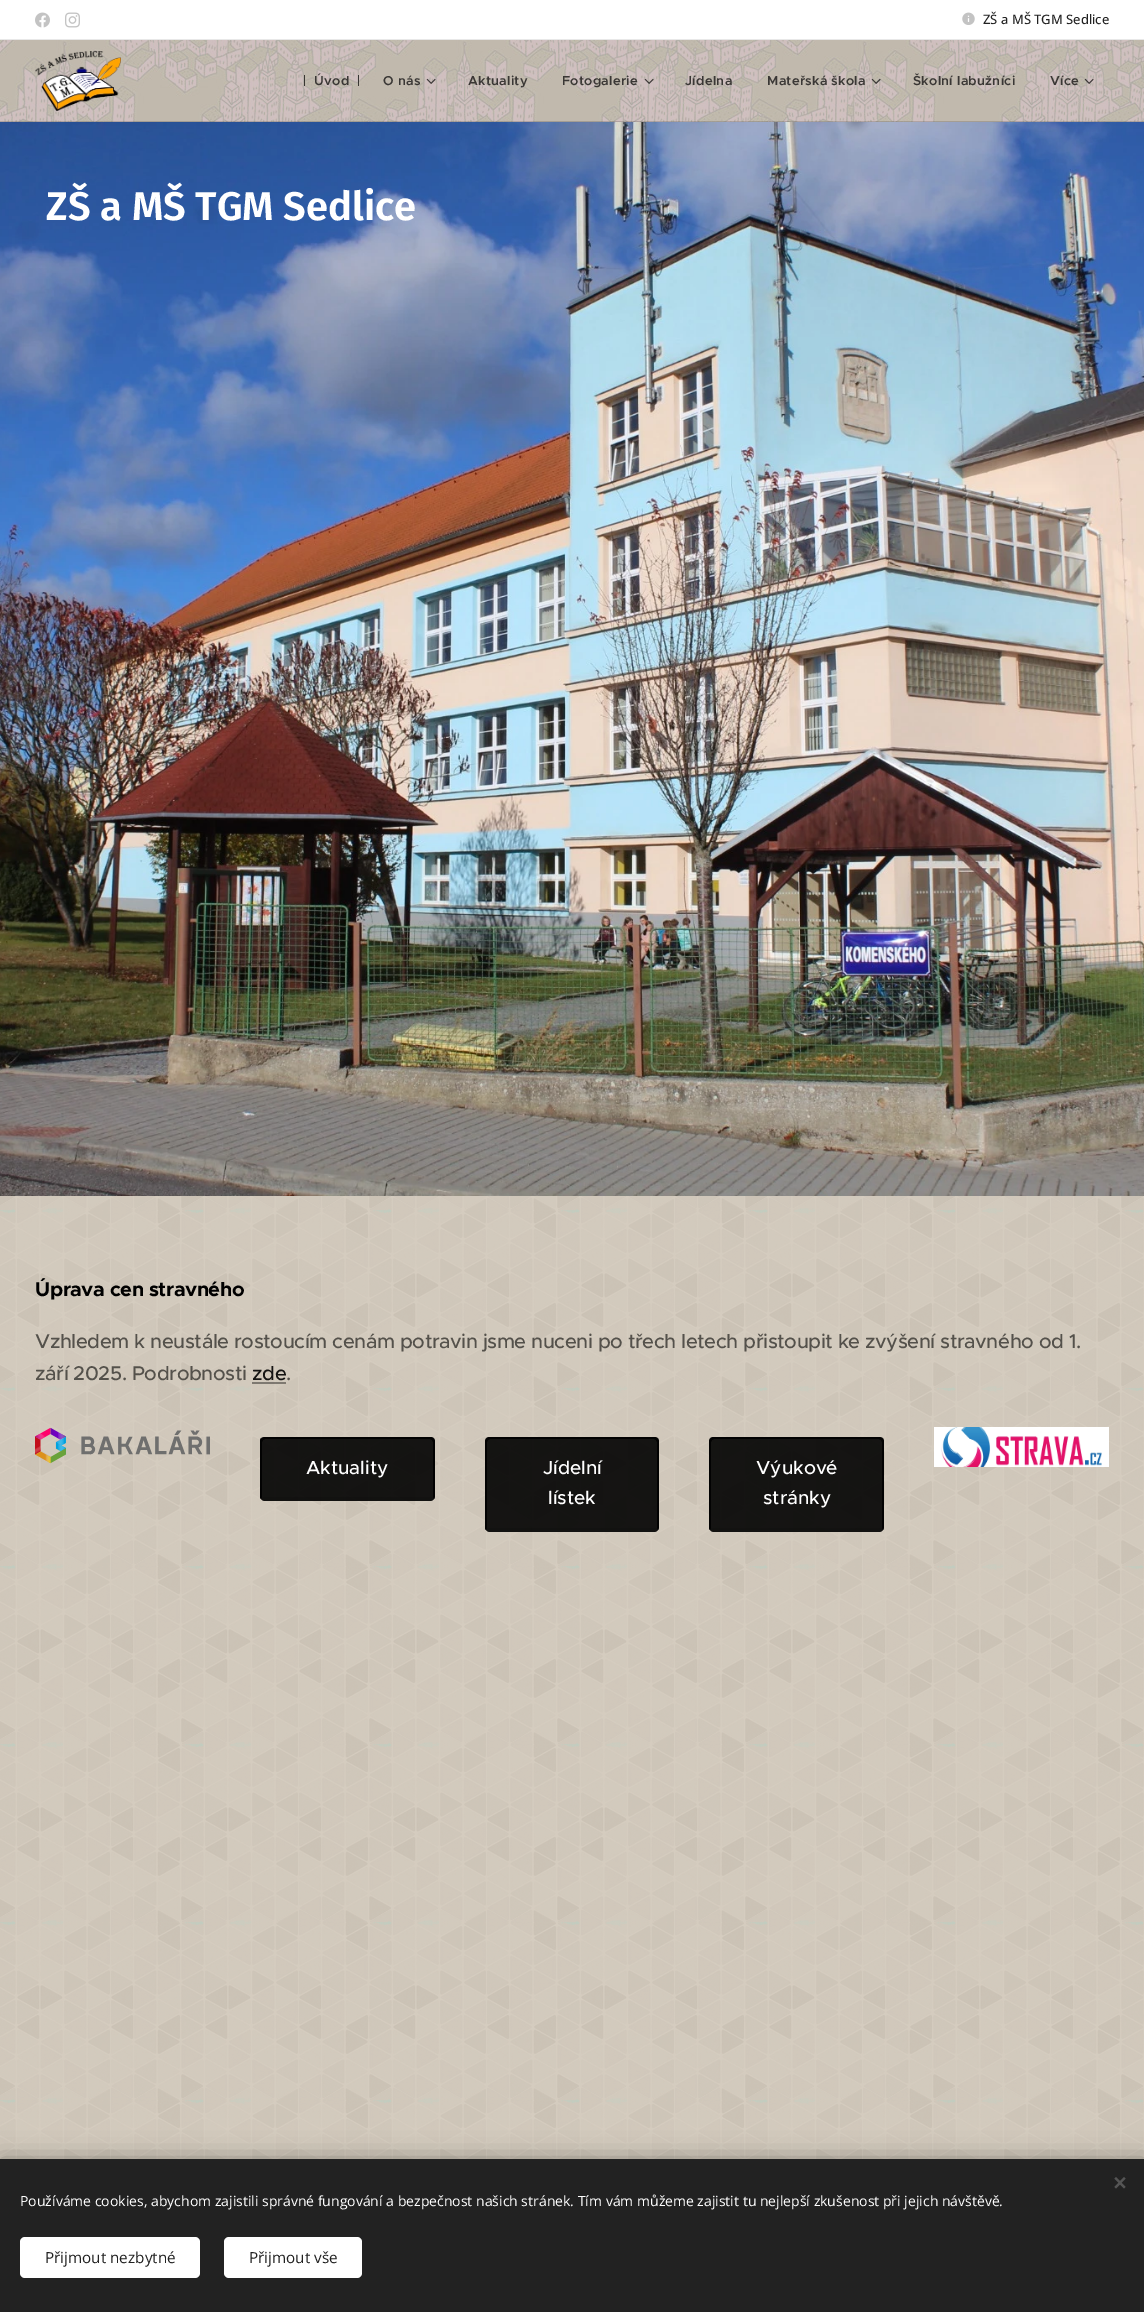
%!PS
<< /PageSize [1144 2312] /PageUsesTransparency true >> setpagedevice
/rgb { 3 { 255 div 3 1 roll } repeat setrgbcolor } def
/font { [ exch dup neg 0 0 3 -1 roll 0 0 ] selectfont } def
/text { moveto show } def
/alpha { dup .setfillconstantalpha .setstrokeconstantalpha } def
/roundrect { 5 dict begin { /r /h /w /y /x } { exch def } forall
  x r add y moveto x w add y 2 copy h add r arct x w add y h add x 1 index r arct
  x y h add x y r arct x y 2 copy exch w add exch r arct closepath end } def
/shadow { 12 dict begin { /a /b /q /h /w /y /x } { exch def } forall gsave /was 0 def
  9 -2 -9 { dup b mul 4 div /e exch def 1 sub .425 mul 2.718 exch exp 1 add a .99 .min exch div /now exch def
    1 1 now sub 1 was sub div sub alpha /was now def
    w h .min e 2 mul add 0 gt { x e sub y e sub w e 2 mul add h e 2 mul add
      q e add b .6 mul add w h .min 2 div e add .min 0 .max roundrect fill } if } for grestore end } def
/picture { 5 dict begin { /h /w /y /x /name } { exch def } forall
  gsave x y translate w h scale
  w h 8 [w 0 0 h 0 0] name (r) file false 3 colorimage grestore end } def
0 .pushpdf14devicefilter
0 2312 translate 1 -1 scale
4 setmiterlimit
255 255 255 rgb
0 0 1144 2312 rectfill
(img_01.rgb) 35 12 15 16 picture
(img_02.rgb) 65 12 15 16 picture
(img_03.rgb) 962 12 13 13 picture
232 232 232 rgb
0 39 1144 1 rectfill
(img_04.rgb) 0 40 1144 82 picture
(img_05.rgb) 35 51 86 60 picture
0.7 alpha
0 0 0 rgb
304 75 1 11 rectfill
358 75 1 11 rectfill
1 alpha
(img_06.rgb) 426 78 10 6 picture
(img_07.rgb) 644 78 10 6 picture
(img_08.rgb) 871 78 10 6 picture
(img_09.rgb) 1084 78 10 6 picture
0.15 alpha
0 121 1144 1 rectfill
1 alpha
(img_10.rgb) 0 122 1144 1074 picture
(img_11.rgb) 0 1196 1144 963 picture
0.4 alpha
252 1382 34 2 rectfill
1 alpha
(img_12.rgb) 35 1427 175 37 picture
(img_13.rgb) 934 1427 175 40 picture
0.9 alpha
260 1437 175 64 5 roundrect fill
265 1437 moveto -1 0 -3 1 -4 1 rcurveto 2 2 rlineto 2 -1 rlineto 165 0 rlineto 2 1 rlineto 2 -2 rlineto -1 0 -2 -1 -4 -1 rcurveto closepath fill
435 1496 moveto 0 -54 rlineto 0 -2 -1 -3 -1 -4 rcurveto -2 2 rlineto 1 2 rlineto 0 55 rlineto 1 2 rlineto closepath fill
0.12 alpha
265 1501 moveto 165 0 rlineto 2 0 3 -1 4 -2 rcurveto -1 -2 rlineto -1 1 -78 0 -85 0 rcurveto -8 0 -85 1 -86 0 rcurveto -1 2 rlineto 1 1 2 2 4 2 rcurveto closepath fill
0.9 alpha
260 1442 moveto 0 54 rlineto 0 1 0 2 1 3 rcurveto 1 -2 rlineto 0 -55 rlineto 1 -2 rlineto -2 -2 rlineto -1 1 -1 2 -1 4 rcurveto closepath fill
485 1437 174 95 5 roundrect fill
490 1437 moveto -2 0 -3 1 -4 1 rcurveto 2 2 rlineto 2 -1 rlineto 164 0 rlineto 2 1 rlineto 2 -2 rlineto -1 0 -2 -1 -4 -1 rcurveto closepath fill
659 1527 moveto 0 -86 rlineto -1 -3 rlineto -2 2 rlineto 1 2 rlineto 0 86 rlineto 1 2 rlineto closepath fill
0.12 alpha
490 1532 moveto 164 0 rlineto 2 0 3 -1 4 -2 rcurveto -1 -2 rlineto -2 0 rlineto -165 0 rlineto -3 0 rlineto -1 2 rlineto 1 1 2 2 4 2 rcurveto closepath fill
0.9 alpha
485 1442 moveto 0 85 rlineto 0 1 0 2 1 3 rcurveto 1 -2 rlineto 0 -86 rlineto 1 -2 rlineto -2 -2 rlineto 0 1 -1 2 -1 4 rcurveto closepath fill
709 1437 175 95 5 roundrect fill
714 1437 moveto -2 0 -3 1 -4 1 rcurveto 2 2 rlineto 2 -1 rlineto 165 0 rlineto 2 1 rlineto 2 -2 rlineto -1 0 -3 -1 -4 -1 rcurveto closepath fill
884 1527 moveto 0 -86 rlineto -1 -3 rlineto -2 2 rlineto 1 2 rlineto 0 86 rlineto 1 2 rlineto closepath fill
0.12 alpha
714 1532 moveto 165 0 rlineto 2 0 3 -1 4 -2 rcurveto -1 -2 rlineto -1 1 -78 0 -86 0 rcurveto -7 0 -84 1 -85 0 rcurveto -1 2 rlineto 1 1 2 2 4 2 rcurveto closepath fill
0.9 alpha
709 1442 moveto 0 85 rlineto 0 1 0 2 1 3 rcurveto 1 -2 rlineto 0 -86 rlineto 1 -2 rlineto -2 -2 rlineto 0 1 -1 2 -1 4 rcurveto closepath fill
1 alpha
0 2159 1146 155 0 12.5 0.33 shadow
34 34 34 rgb
0 2159 1144 153 rectfill
85 85 85 rgb
1114.5 2187 moveto 9.5 -10 rlineto 1.5 1.5 rlineto -9.5 10 rlineto closepath fill
1116 2177 moveto 9.5 10 rlineto -1.5 1.5 rlineto -9.5 -10 rlineto closepath fill
255 255 255 rgb
20 2237 180 41 5 roundrect fill
224 2237 138 41 5 roundrect fill
/OpenSans-Medium 13 font
34 34 34 rgb
(ZŠ a MŠ TGM Sedlice) 983 24 text
/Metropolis-SemiBold 13 font
58 55 53 rgb
314 85 moveto 0.3 0 (Úvod) ashow
383 85 moveto 0.3 0 (O nás) ashow
468 85 moveto 0.3 0 (Aktuality) ashow
562 85 moveto 0.3 0 (Fotogalerie) ashow
685 85 moveto 0.3 0 (Jídelna) ashow
767 85 moveto 0.3 0 (Mateřská škola) ashow
913 85 moveto 0.3 0 (Školní labužníci) ashow
1050 85 moveto 0.3 0 (Více) ashow
/FiraSans-SemiBold 40 font
255 255 255 rgb
(ZŠ a MŠ TGM Sedlice) 46 220 text
/Metropolis-Bold 20 font
0 0 0 rgb
35 1296 moveto -0.4 0 (Úprava cen stravného) ashow
/Metropolis-Medium 20 font
84 81 75 rgb
35 1348 moveto -0.4 0 (Vzhledem k neustále rostoucím cenám potravin jsme nuceni po třech letech přistoupit ke zvýšení stravného od 1.) ashow
35 1380 moveto -0.4 0 (září 2025. Podrobnosti) ashow
21 20 19 rgb
252 1380 moveto -0.4 0 (zde) ashow
84 81 75 rgb
286 1380 moveto -0.4 0 (.) ashow
/Metropolis-Medium 19 font
255 255 255 rgb
(Aktuality) 306 1474 text
(Jídelní) 543 1474 text
(lístek) 548 1504 text
(Výukové) 756 1474 text
(stránky) 763 1504 text
/OpenSans-Regular 14 font
(Používáme cookies, abychom zajistili správné fungování a bezpečnost našich stránek. Tím vám můžeme zajistit tu nejlepší zkušenost při jejich návštěvě.) 20 2206 text
/OpenSans-Regular 15.25 font
34 34 34 rgb
(Přijmout nezbytné) 45 2263 text
(Přijmout vše) 249 2263 text
.poppdf14devicefilter showpage
